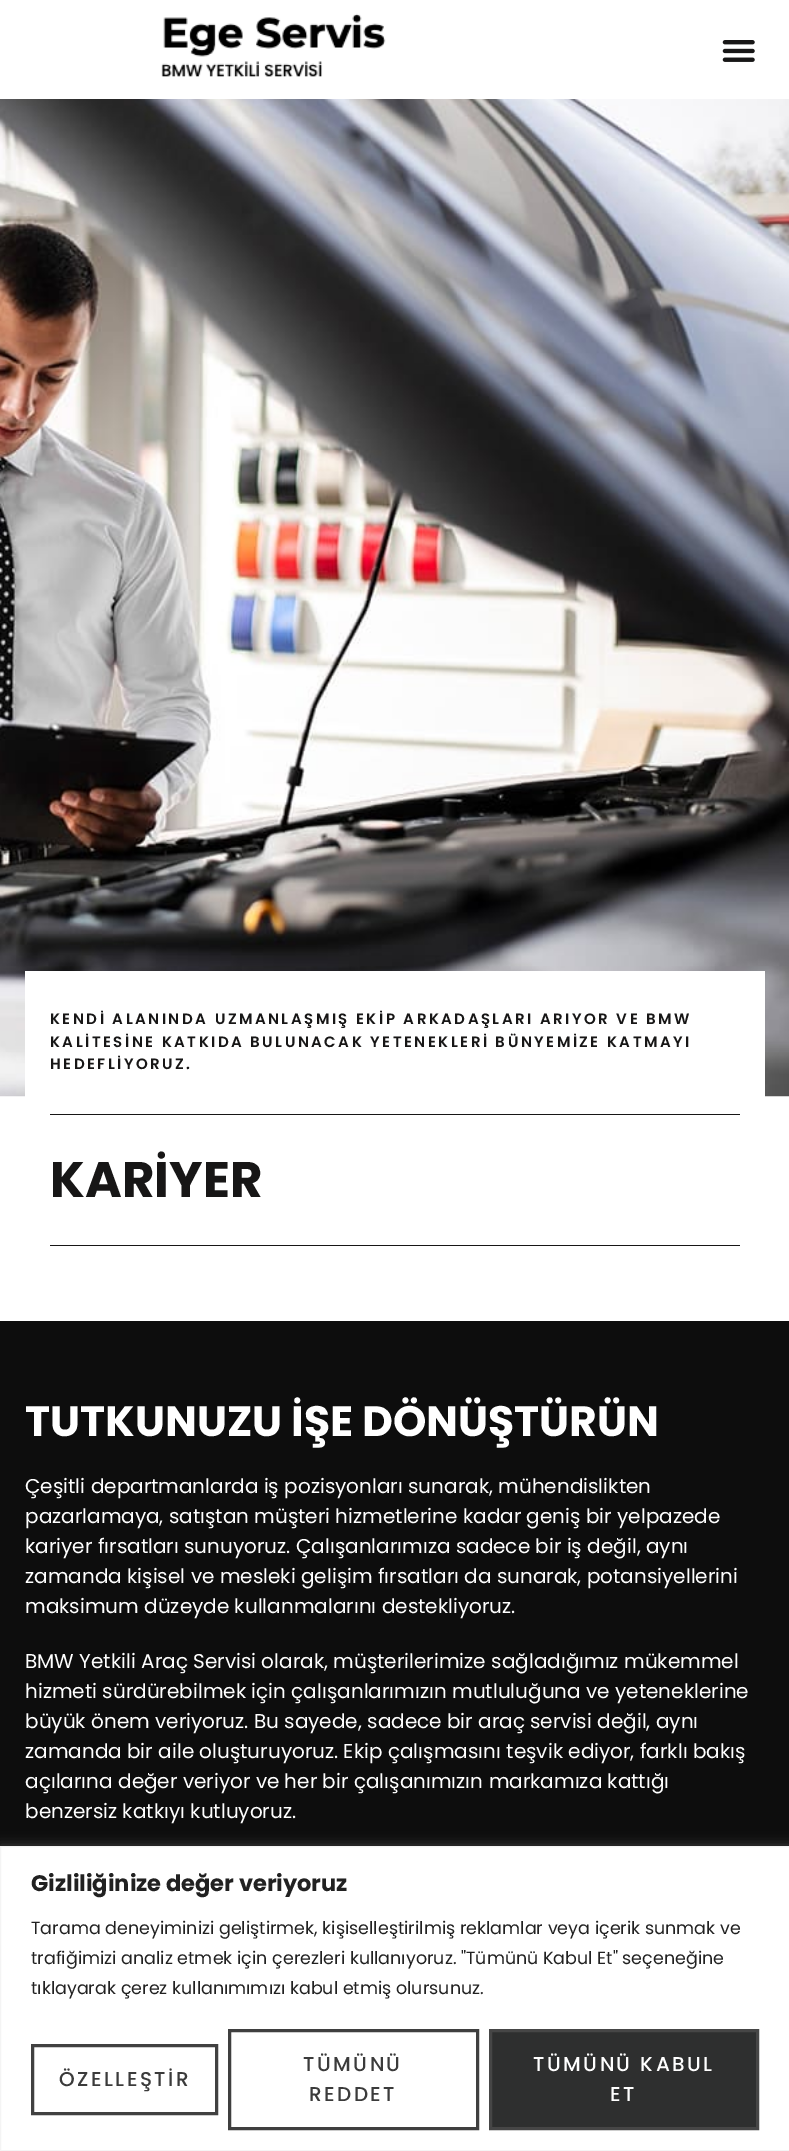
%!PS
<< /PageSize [789 2151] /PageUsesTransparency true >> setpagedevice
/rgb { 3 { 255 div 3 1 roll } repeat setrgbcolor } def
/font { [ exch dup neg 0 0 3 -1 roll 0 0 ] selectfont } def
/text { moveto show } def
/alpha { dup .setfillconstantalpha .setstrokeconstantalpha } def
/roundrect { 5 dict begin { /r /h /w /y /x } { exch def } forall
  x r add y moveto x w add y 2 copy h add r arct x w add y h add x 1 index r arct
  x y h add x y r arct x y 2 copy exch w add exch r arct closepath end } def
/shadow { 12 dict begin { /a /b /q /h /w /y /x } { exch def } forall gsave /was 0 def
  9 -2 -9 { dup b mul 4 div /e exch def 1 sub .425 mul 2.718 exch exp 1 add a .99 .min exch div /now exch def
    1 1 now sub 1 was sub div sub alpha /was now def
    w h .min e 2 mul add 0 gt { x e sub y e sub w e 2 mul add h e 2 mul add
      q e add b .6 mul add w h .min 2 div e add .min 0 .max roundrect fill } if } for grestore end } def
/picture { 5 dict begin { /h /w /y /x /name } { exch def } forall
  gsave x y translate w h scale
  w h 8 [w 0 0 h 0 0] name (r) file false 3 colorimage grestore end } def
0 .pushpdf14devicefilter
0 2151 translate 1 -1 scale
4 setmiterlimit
255 255 255 rgb
0 0 789 2151 rectfill
(img_01.rgb) 161 13 225 64 picture
(img_02.rgb) 722 40 33 22 picture
(img_03.rgb) 0 99 789 998 picture
25 971 740 126 rectfill
23 22 22 rgb
50 1114 690 1 rectfill
50 1245 690 1 rectfill
13 13 13 rgb
0 1321 789 525 rectfill
172 171 171 rgb
0 1845 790 305 0 6 0.3 shadow
255 255 255 rgb
0.5 1846.5 moveto 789 0 rlineto 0 304 rlineto -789 0 rlineto closepath gsave fill grestore
244 244 244 rgb
stroke
65 65 65 rgb
3 setlinewidth
32.5 2045.5 184 68 rectstroke
63 63 63 rgb
229.5 2030.5 248 98 rectstroke
46 47 47 rgb
490.5 2030.5 moveto 267 0 rlineto 0 98 rlineto -267 0 rlineto closepath gsave fill grestore
70 70 70 rgb
stroke
/Poppins-SemiBold 15 font
23 22 22 rgb
50 1024 moveto 2.5 0 (KENDİ ALANINDA UZMANLAŞMIŞ EKİP ARKADAŞLARI ARIYOR VE BMW) ashow
50 1047 moveto 2.5 0 (KALİTESİNE KATKIDA BULUNACAK YETENEKLERİ BÜNYEMİZE KATMAYI) ashow
50 1069 moveto 2.5 0 (HEDEFLİYORUZ.) ashow
/Poppins-Bold 50 font
(KARİYER) 50 1197 text
/Poppins-Bold 42.5 font
255 255 255 rgb
(TUTKUNUZU İŞE DÖNÜŞTÜRÜN) 25 1436 text
/Poppins-Regular 20 font
(Çeşitli departmanlarda iş pozisyonları sunarak, mühendislikten) 25 1493 text
(pazarlamaya, satıştan müşteri hizmetlerine kadar geniş bir yelpazede) 25 1523 text
(kariyer fırsatları sunuyoruz. Çalışanlarımıza sadece bir iş değil, aynı) 25 1553 text
(zamanda kişisel ve mesleki gelişim fırsatları da sunarak, potansiyellerini) 25 1583 text
(maksimum düzeyde kullanmalarını destekliyoruz.) 25 1613 text
(BMW Yetkili Araç Servisi olarak, müşterilerimize sağladığımız mükemmel) 25 1668 text
(hizmeti sürdürebilmek için çalışanlarımızın mutluluğuna ve yeteneklerine) 25 1698 text
(büyük önem veriyoruz. Bu sayede, sadece bir araç servisi değil, aynı) 25 1728 text
(zamanda bir aile oluşturuyoruz. Ekip çalışmasını teşvik ediyor, farklı bakış) 25 1758 text
(açılarına değer veriyor ve her bir çalışanımızın markamıza kattığı) 25 1788 text
(benzersiz katkıyı kutluyoruz.) 25 1818 text
/Poppins-Bold 22.5 font
33 33 33 rgb
(Gizliliğinize değer veriyoruz) 31 1891 text
/Poppins-Regular 17.5 font
(Tarama deneyiminizi geliştirmek, kişiselleştirilmiş reklamlar veya içerik sunmak ve) 31 1934 text
(trafiğimizi analiz etmek için çerezleri kullanıyoruz. "Tümünü Kabul Et" seçeneğine) 31 1964 text
(tıklayarak çerez kullanımımızı kabul etmiş olursunuz.) 31 1994 text
/Poppins-Medium 20 font
59 59 59 rgb
59 2086 moveto 2.5 0 (ÖZELLEŞTİR) ashow
303 2071 moveto 2.5 0 (TÜMÜNÜ) ashow
309 2101 moveto 2.5 0 (REDDET) ashow
255 255 255 rgb
533 2071 moveto 2.5 0 (TÜMÜNÜ KABUL) ashow
610 2101 moveto 2.5 0 (ET) ashow
.poppdf14devicefilter showpage
